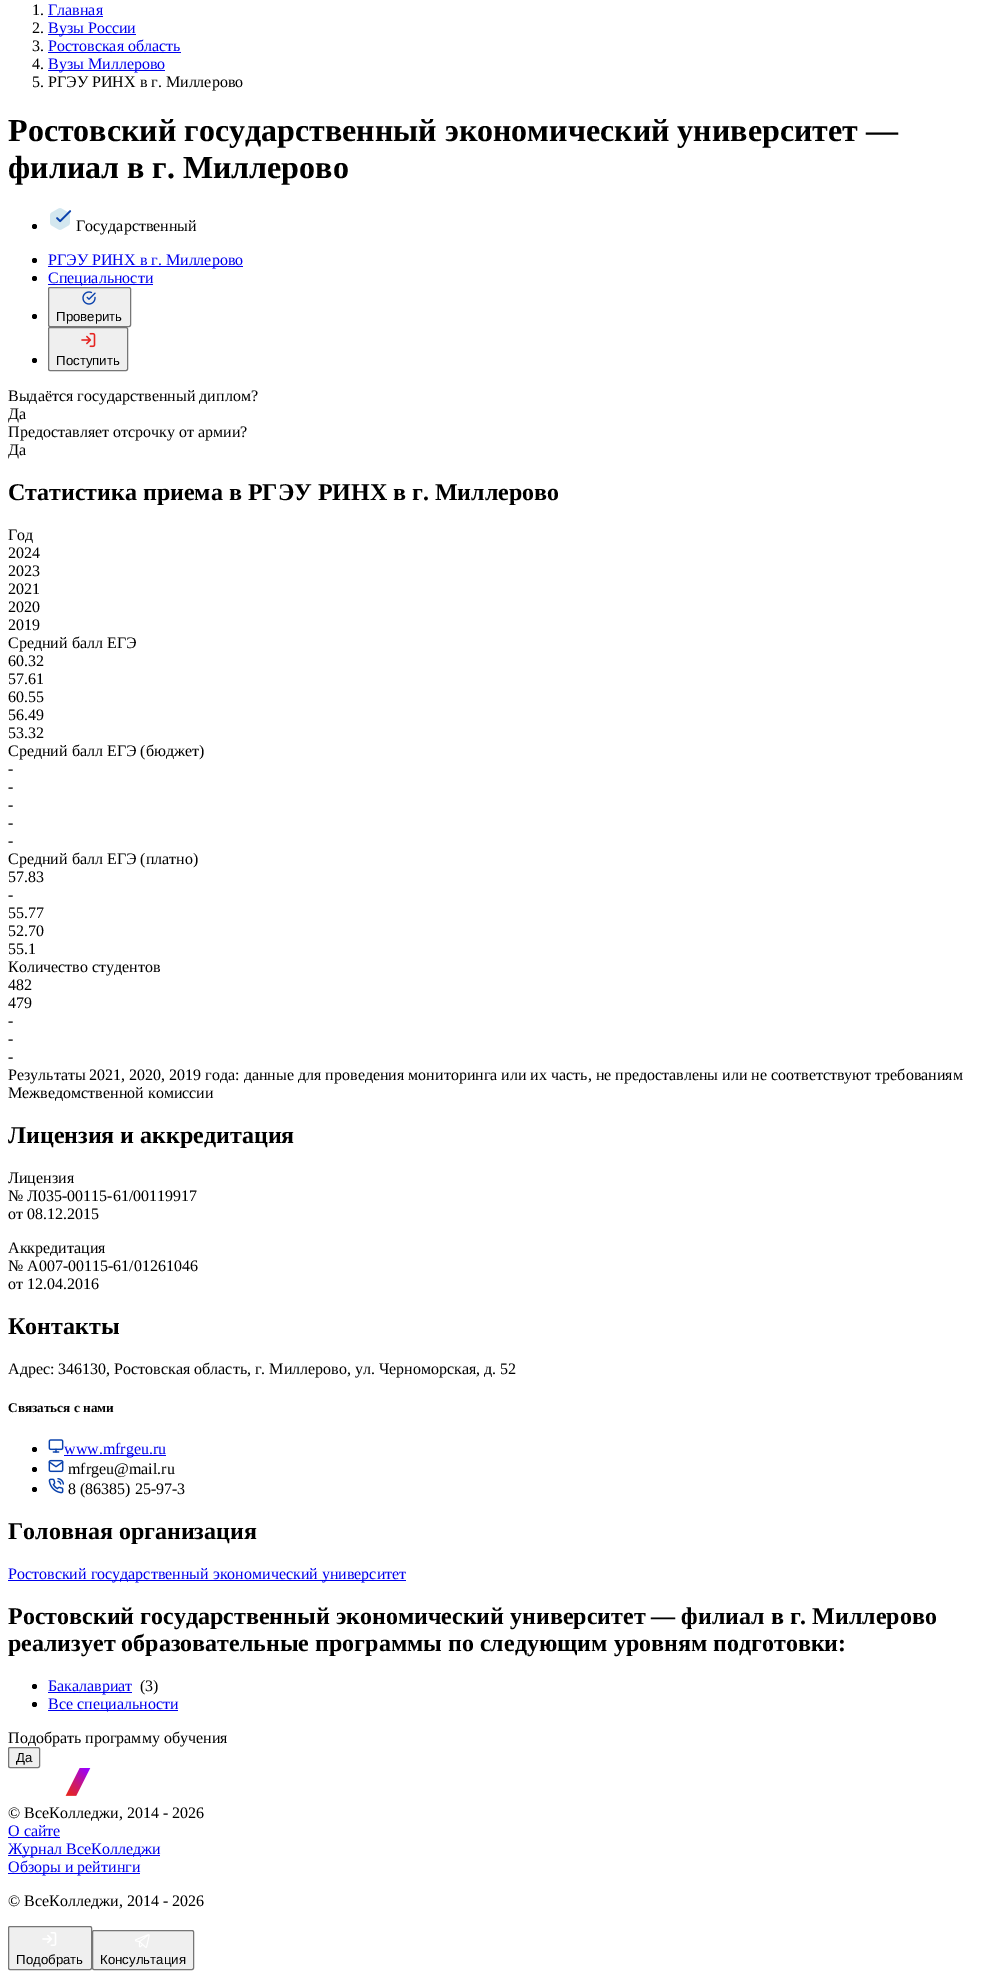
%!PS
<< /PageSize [1006 1978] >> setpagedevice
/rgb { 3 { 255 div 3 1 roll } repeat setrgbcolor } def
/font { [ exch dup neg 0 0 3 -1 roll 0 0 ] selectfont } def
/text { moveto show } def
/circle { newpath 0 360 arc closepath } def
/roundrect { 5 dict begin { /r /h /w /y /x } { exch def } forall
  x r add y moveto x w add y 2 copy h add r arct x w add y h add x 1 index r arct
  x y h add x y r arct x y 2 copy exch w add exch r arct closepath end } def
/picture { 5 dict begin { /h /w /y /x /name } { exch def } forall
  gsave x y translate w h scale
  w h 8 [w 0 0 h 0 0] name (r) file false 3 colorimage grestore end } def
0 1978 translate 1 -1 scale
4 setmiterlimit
255 255 255 rgb
0 0 1006 1978 rectfill
0 0 238 rgb
48 16 55 1 rectfill
48 34 88 1 rectfill
48 52 133 1 rectfill
48 70 117 1 rectfill
0 0 0 rgb
34.5 226.5 2.5 circle fill
(img_01.rgb) 50 208 22 22 picture
34.5 260.5 2.5 circle fill
0 0 238 rgb
48 266 195 1 rectfill
0 0 0 rgb
34.5 278.5 2.5 circle fill
0 0 238 rgb
48 284 105 1 rectfill
0 0 0 rgb
34.5 316.5 2.5 circle fill
239 239 239 rgb
48.5 287.5 82 39 1.5 roundrect gsave fill grestore
118 118 118 rgb
stroke
(img_02.rgb) 82 291 14 14 picture
0 0 0 rgb
34.5 360.5 2.5 circle fill
239 239 239 rgb
48.5 327.5 79 43 1.5 roundrect gsave fill grestore
118 118 118 rgb
stroke
(img_03.rgb) 81 332 15 16 picture
0 0 0 rgb
34.5 1449.5 2.5 circle fill
(img_04.rgb) 48 1439 16 14 picture
0 0 238 rgb
64 1455 102 1 rectfill
0 0 0 rgb
34.5 1469.5 2.5 circle fill
(img_05.rgb) 48 1459 16 14 picture
34.5 1489.5 2.5 circle fill
(img_06.rgb) 48 1478 16 16 picture
0 0 238 rgb
8 1580 398 1 rectfill
0 0 0 rgb
34.5 1686.5 2.5 circle fill
0 0 238 rgb
48 1692 84 1 rectfill
0 0 0 rgb
34.5 1704.5 2.5 circle fill
0 0 238 rgb
48 1710 130 1 rectfill
239 239 239 rgb
8.5 1747.5 31 20 1.5 roundrect gsave fill grestore
118 118 118 rgb
stroke
(img_07.rgb) 65 1768 26 28 picture
0 0 238 rgb
8 1837 52 1 rectfill
8 1855 152 1 rectfill
8 1873 132 1 rectfill
239 239 239 rgb
8.5 1926.5 83 43 1.5 roundrect gsave fill grestore
118 118 118 rgb
stroke
(img_08.rgb) 42 1932 15 14 picture
239 239 239 rgb
92.5 1930.5 101 39 1.5 roundrect gsave fill grestore
118 118 118 rgb
stroke
(img_09.rgb) 135 1934 15 14 picture
/LiberationSerif-Regular 16 font
0 0 0 rgb
(1.) 32 15 text
0 0 238 rgb
(Главная) 48 15 text
0 0 0 rgb
(2.) 32 33 text
0 0 238 rgb
(Вузы России) 48 33 text
0 0 0 rgb
(3.) 32 51 text
0 0 238 rgb
(Ростовская область) 48 51 text
0 0 0 rgb
(4.) 32 69 text
0 0 238 rgb
(Вузы Миллерово) 48 69 text
0 0 0 rgb
(5. РГЭУ РИНХ в г. Миллерово) 32 87 text
/LiberationSerif-Bold 32 font
(Ростовский государственный экономический университет —) 8 141 text
(филиал в г. Миллерово) 8 178 text
/LiberationSerif-Regular 16 font
(Государственный) 76 231 text
0 0 238 rgb
(РГЭУ РИНХ в г. Миллерово) 48 265 text
(Специальности) 48 283 text
/LiberationSans-Regular 13.25 font
0 0 0 rgb
(Проверить) 56 321 text
(Поступить) 56 365 text
/LiberationSerif-Regular 16 font
(Выдаётся государственный диплом?) 8 401 text
(Да) 8 419 text
(Предоставляет отсрочку от армии?) 8 437 text
(Да) 8 455 text
/LiberationSerif-Bold 24 font
(Статистика приема в РГЭУ РИНХ в г. Миллерово) 8 500 text
/LiberationSerif-Regular 16 font
(Год) 8 540 text
(2024) 8 558 text
(2023) 8 576 text
(2021) 8 594 text
(2020) 8 612 text
(2019) 8 630 text
(Средний балл ЕГЭ) 8 648 text
(60.32) 8 666 text
(57.61) 8 684 text
(60.55) 8 702 text
(56.49) 8 720 text
(53.32) 8 738 text
(Средний балл ЕГЭ \(бюджет\)) 8 756 text
(-) 8 774 text
(-) 8 792 text
(-) 8 810 text
(-) 8 828 text
(-) 8 846 text
(Средний балл ЕГЭ \(платно\)) 8 864 text
(57.83) 8 882 text
(-) 8 900 text
(55.77) 8 918 text
(52.70) 8 936 text
(55.1) 8 954 text
(Количество студентов) 8 972 text
(482) 8 990 text
(479) 8 1008 text
(-) 8 1026 text
(-) 8 1044 text
(-) 8 1062 text
(Результаты 2021, 2020, 2019 года: данные для проведения мониторинга или их часть, не предоставлены или не соответствуют требованиям) 8 1080 text
(Межведомственной комиссии) 8 1098 text
/LiberationSerif-Bold 24 font
(Лицензия и аккредитация) 8 1143 text
/LiberationSerif-Regular 16 font
(Лицензия) 8 1183 text
(№ Л035-00115-61/00119917) 8 1201 text
(от 08.12.2015) 8 1219 text
(Аккредитация) 8 1253 text
(№ А007-00115-61/01261046) 8 1271 text
(от 12.04.2016) 8 1289 text
/LiberationSerif-Bold 24 font
(Контакты) 8 1334 text
/LiberationSerif-Regular 16 font
(Адрес: 346130, Ростовская область, г. Миллерово, ул. Черноморская, д. 52) 8 1374 text
/LiberationSerif-Bold 13.25 font
(Связаться с нами) 8 1412 text
/LiberationSerif-Regular 16 font
0 0 238 rgb
(www.mfrgeu.ru) 64 1454 text
0 0 0 rgb
(mfrgeu@mail.ru) 68 1474 text
(8 \(86385\) 25-97-3) 68 1494 text
/LiberationSerif-Bold 24 font
(Головная организация) 8 1539 text
/LiberationSerif-Regular 16 font
0 0 238 rgb
(Ростовский государственный экономический университет) 8 1579 text
/LiberationSerif-Bold 24 font
0 0 0 rgb
(Ростовский государственный экономический университет — филиал в г. Миллерово) 8 1624 text
(реализует образовательные программы по следующим уровням подготовки:) 8 1651 text
/LiberationSerif-Regular 16 font
0 0 238 rgb
(Бакалавриат) 48 1691 text
0 0 0 rgb
(\(3\)) 140 1691 text
0 0 238 rgb
(Все специальности) 48 1709 text
0 0 0 rgb
(Подобрать программу обучения) 8 1743 text
/LiberationSans-Regular 13.25 font
(Да) 16 1762 text
/LiberationSerif-Regular 16 font
(© ВсеКолледжи, 2014 - 2026) 8 1818 text
0 0 238 rgb
(О сайте) 8 1836 text
(Журнал ВсеКолледжи) 8 1854 text
(Обзоры и рейтинги) 8 1872 text
0 0 0 rgb
(© ВсеКолледжи, 2014 - 2026) 8 1906 text
/LiberationSans-Regular 13.25 font
(Подобрать) 16 1964 text
(Консультация) 100 1964 text
showpage
